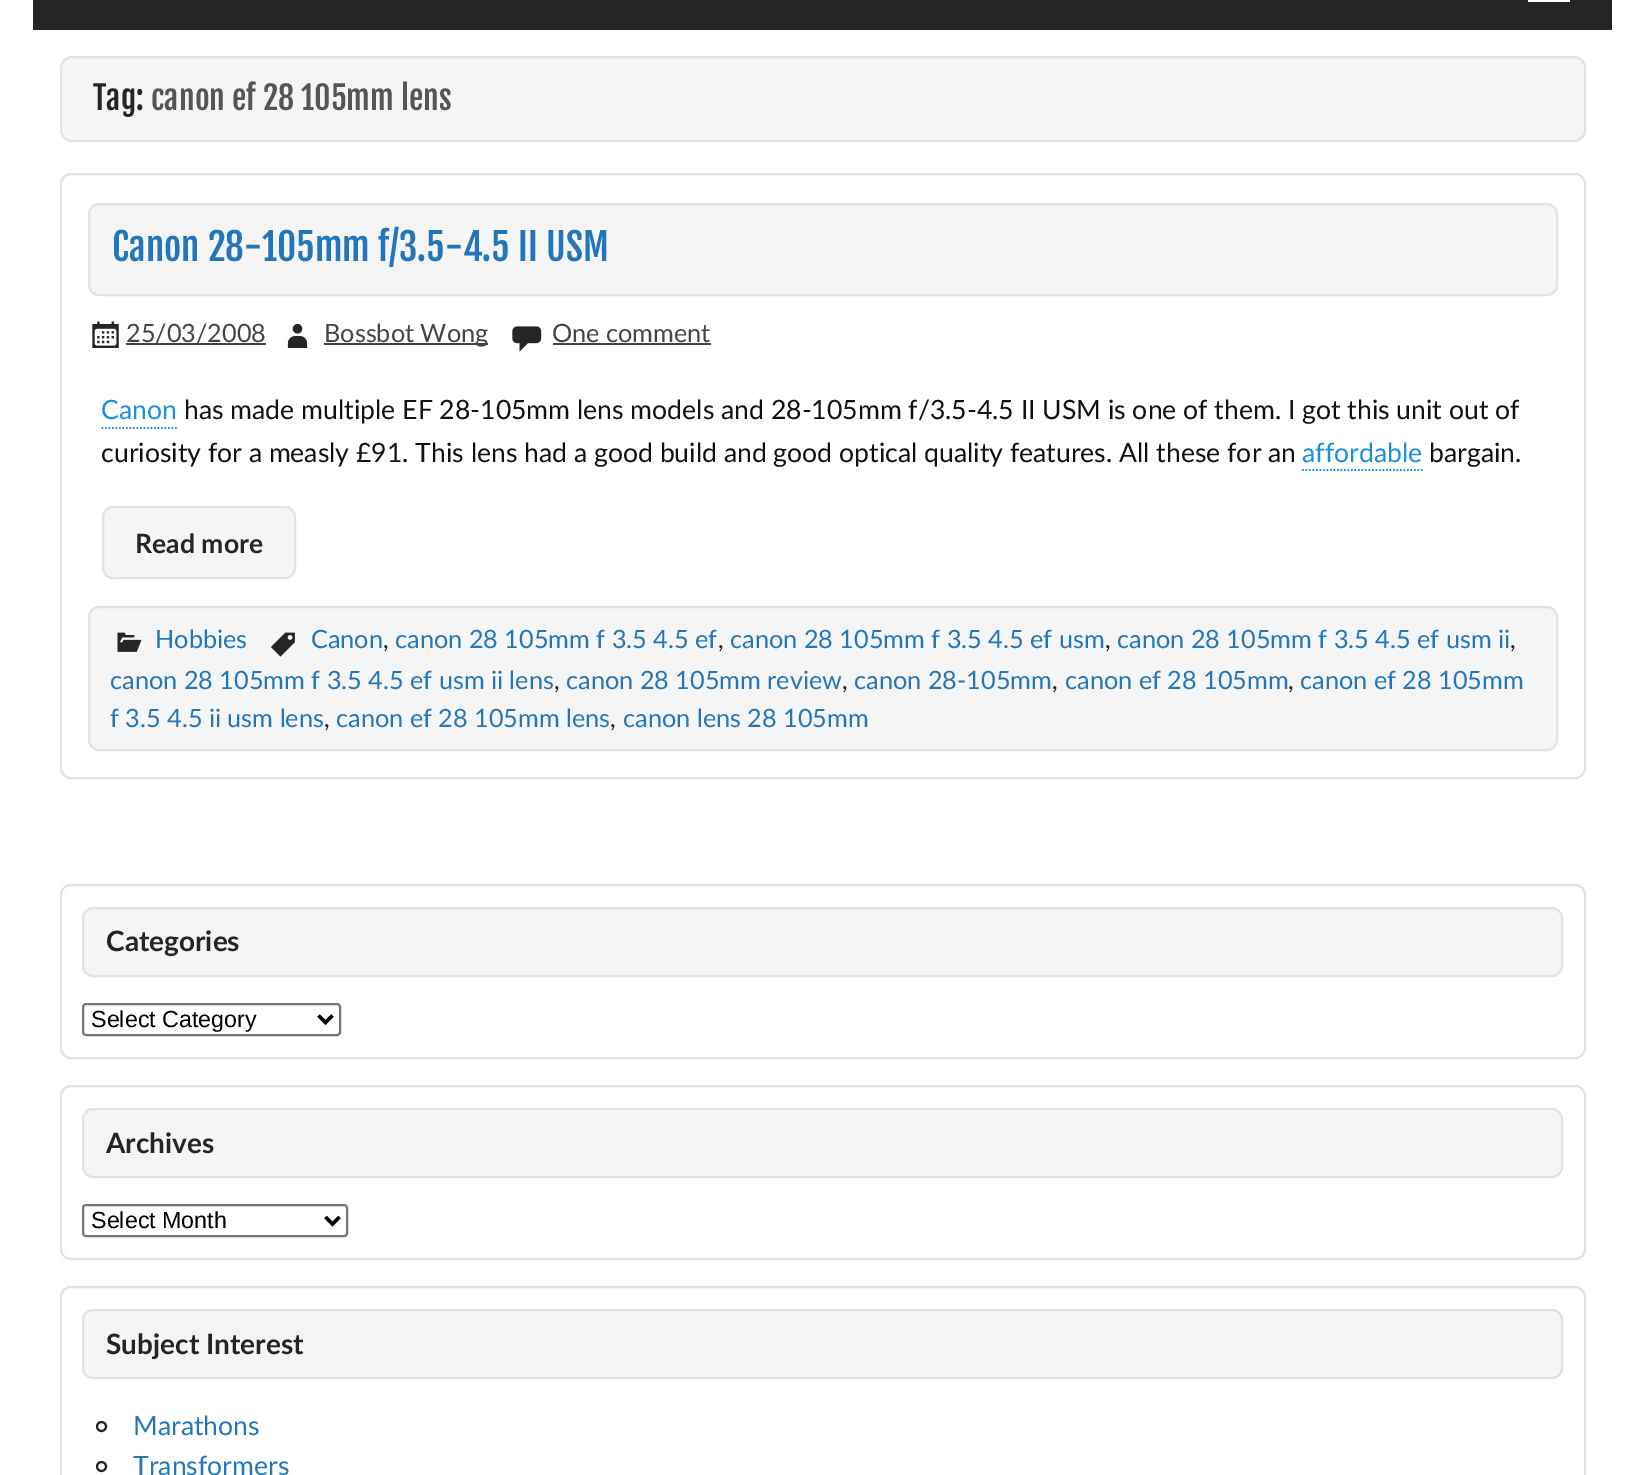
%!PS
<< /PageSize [1645 1475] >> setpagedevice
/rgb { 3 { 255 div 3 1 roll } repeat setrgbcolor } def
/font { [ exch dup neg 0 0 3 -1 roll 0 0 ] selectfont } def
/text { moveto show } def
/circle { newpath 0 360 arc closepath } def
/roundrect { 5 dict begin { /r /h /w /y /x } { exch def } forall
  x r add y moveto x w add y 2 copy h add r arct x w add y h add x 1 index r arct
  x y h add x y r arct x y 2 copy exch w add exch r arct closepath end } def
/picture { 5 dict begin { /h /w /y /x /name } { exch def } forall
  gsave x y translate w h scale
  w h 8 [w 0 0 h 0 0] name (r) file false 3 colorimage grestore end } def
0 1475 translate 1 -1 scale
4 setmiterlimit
255 255 255 rgb
0 0 1645 1475 rectfill
37 37 37 rgb
33 0 1579 30 rectfill
255 255 255 rgb
1528 2 moveto 0 -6 rlineto 42 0 rlineto 0 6 rlineto closepath 1528 -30 moveto 42 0 rlineto 0 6 rlineto -42 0 rlineto closepath 1528 -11 moveto 0 -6 rlineto 42 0 rlineto 0 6 rlineto closepath fill
245 245 245 rgb
61 57 1524 84 11 roundrect gsave fill grestore
226 226 226 rgb
2 setlinewidth
stroke
61 174 1524 604 10 roundrect stroke
245 245 245 rgb
89 204 1468 91 10 roundrect gsave fill grestore
226 226 226 rgb
stroke
(img_01.rgb) 92 321 27 27 picture
68 68 68 rgb
126 343 140 2 rectfill
(img_02.rgb) 287 324 21 24 picture
324 343 164 2 rectfill
(img_03.rgb) 512 326 30 26 picture
553 343 158 2 rectfill
27 142 222 rgb
1.8 setlinewidth
[1.75 1.75] 0 setdash
101.5 428 moveto 75.5 0 rlineto stroke
1302 470 moveto 121 0 rlineto stroke
245 245 245 rgb
103 507 192 71 10 roundrect gsave fill grestore
226 226 226 rgb
2 setlinewidth
[] 0 setdash
stroke
245 245 245 rgb
89 607 1468 143 10 roundrect gsave fill grestore
226 226 226 rgb
stroke
(img_04.rgb) 270 632 25 25 picture
(img_05.rgb) 117 632 25 20 picture
61 885 1524 173 10 roundrect stroke
245 245 245 rgb
83 908 1479 68 10 roundrect gsave fill grestore
226 226 226 rgb
stroke
118 118 118 rgb
83 1004 257 31 3 roundrect stroke
0 0 0 rgb
3.5 setlinewidth
318.5 1015.5 moveto 7 7 rlineto 7 -7 rlineto stroke
226 226 226 rgb
2 setlinewidth
61 1086 1524 173 10 roundrect stroke
245 245 245 rgb
83 1109 1479 68 10 roundrect gsave fill grestore
226 226 226 rgb
stroke
118 118 118 rgb
83 1205 264 31 3 roundrect stroke
0 0 0 rgb
3.5 setlinewidth
325.5 1217 moveto 7 7 rlineto 7 -7 rlineto stroke
226 226 226 rgb
2 setlinewidth
61 1287 1524 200 10 roundrect stroke
245 245 245 rgb
83 1310 1479 68 10 roundrect gsave fill grestore
226 226 226 rgb
stroke
37 37 37 rgb
101.5 1426.5 4.5 circle stroke
101.5 1466.5 4.5 circle stroke
/FjallaOne-Regular 32 font
(Tag:) 93 110 text
85 85 85 rgb
(canon ef 28 105mm lens) 151 110 text
/FjallaOne-Regular 37.25 font
34 119 187 rgb
(Canon 28-105mm f/3.5-4.5 II USM) 112 261 text
/Lato-Regular 25.25 font
68 68 68 rgb
(25/03/2008) 126 342 text
(Bossbot Wong) 324 342 text
(One comment) 552 342 text
/Lato-Regular 26.6 font
27 142 222 rgb
(Canon) 101 419 text
17 17 17 rgb
(has made multiple EF 28-105mm lens models and 28-105mm f/3.5-4.5 II USM is one of them. I got this unit out of) 184 419 text
(curiosity for a measly £91. This lens had a good build and good optical quality features. All these for an) 101 462 text
27 142 222 rgb
(affordable) 1302 462 text
17 17 17 rgb
(bargain.) 1429 462 text
/Lato-Bold 26.6 font
37 37 37 rgb
(Read more) 135 553 text
/Lato-Regular 25.25 font
34 119 187 rgb
(Canon) 311 648 text
37 37 37 rgb
(,) 383 648 text
34 119 187 rgb
(canon 28 105mm f 3.5 4.5 ef) 395 648 text
37 37 37 rgb
(,) 718 648 text
34 119 187 rgb
(canon 28 105mm f 3.5 4.5 ef usm) 730 648 text
37 37 37 rgb
(,) 1105 648 text
34 119 187 rgb
(canon 28 105mm f 3.5 4.5 ef usm ii) 1117 648 text
37 37 37 rgb
(,) 1510 648 text
34 119 187 rgb
(canon 28 105mm f 3.5 4.5 ef usm ii lens) 110 689 text
37 37 37 rgb
(,) 554 689 text
34 119 187 rgb
(canon 28 105mm review) 566 689 text
37 37 37 rgb
(,) 842 689 text
34 119 187 rgb
(canon 28-105mm) 854 689 text
37 37 37 rgb
(,) 1052 689 text
34 119 187 rgb
(canon ef 28 105mm) 1065 689 text
37 37 37 rgb
(,) 1288 689 text
34 119 187 rgb
(canon ef 28 105mm) 1300 689 text
(f 3.5 4.5 ii usm lens) 110 727 text
37 37 37 rgb
(,) 324 727 text
34 119 187 rgb
(canon ef 28 105mm lens) 336 727 text
37 37 37 rgb
(,) 610 727 text
34 119 187 rgb
(canon lens 28 105mm) 623 727 text
(Hobbies) 155 648 text
/Lato-Bold 28 font
37 37 37 rgb
(Categories) 106 951 text
/LiberationSans-Regular 23.25 font
0 0 0 rgb
(Select Category) 91 1027 text
/Lato-Bold 28 font
37 37 37 rgb
(Archives) 106 1153 text
/LiberationSans-Regular 23.25 font
0 0 0 rgb
(Select Month) 91 1228 text
/Lato-Bold 28 font
37 37 37 rgb
(Subject Interest) 106 1354 text
/Lato-Regular 26.6 font
34 119 187 rgb
(Marathons) 133 1435 text
(Transformers) 133 1475 text
showpage
